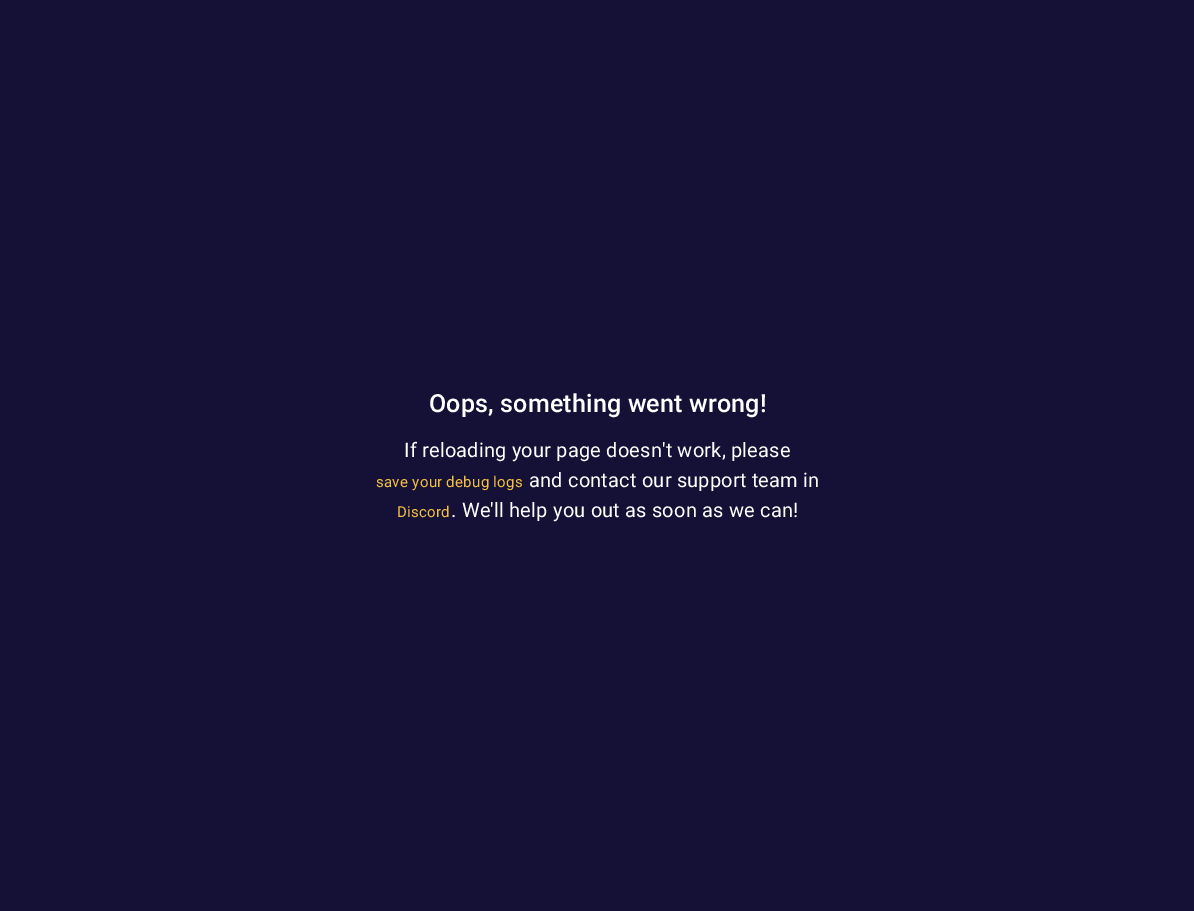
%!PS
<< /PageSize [1194 911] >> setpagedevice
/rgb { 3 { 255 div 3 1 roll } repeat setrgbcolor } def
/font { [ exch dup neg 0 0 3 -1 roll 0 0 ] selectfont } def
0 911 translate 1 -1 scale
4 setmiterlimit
21 17 54 rgb
0 0 1194 911 rectfill
/Roboto-Medium 25 font
255 255 255 rgb
429 412 moveto 0.2 0 (Oops, something went wrong!) ashow
/Roboto-Regular 20 font
404 457 moveto 0.2 0 (If reloading your page doesn't work, please) ashow
/Roboto-Regular 15 font
242 191 67 rgb
376 487 moveto 0.3 0 (save your debug logs) ashow
/Roboto-Regular 20 font
255 255 255 rgb
529 487 moveto 0.2 0 (and contact our support team in) ashow
/Roboto-Regular 15 font
242 191 67 rgb
397 517 moveto 0.3 0 (Discord) ashow
/Roboto-Regular 20 font
255 255 255 rgb
451 517 moveto 0.2 0 (. We'll help you out as soon as we can!) ashow
showpage
